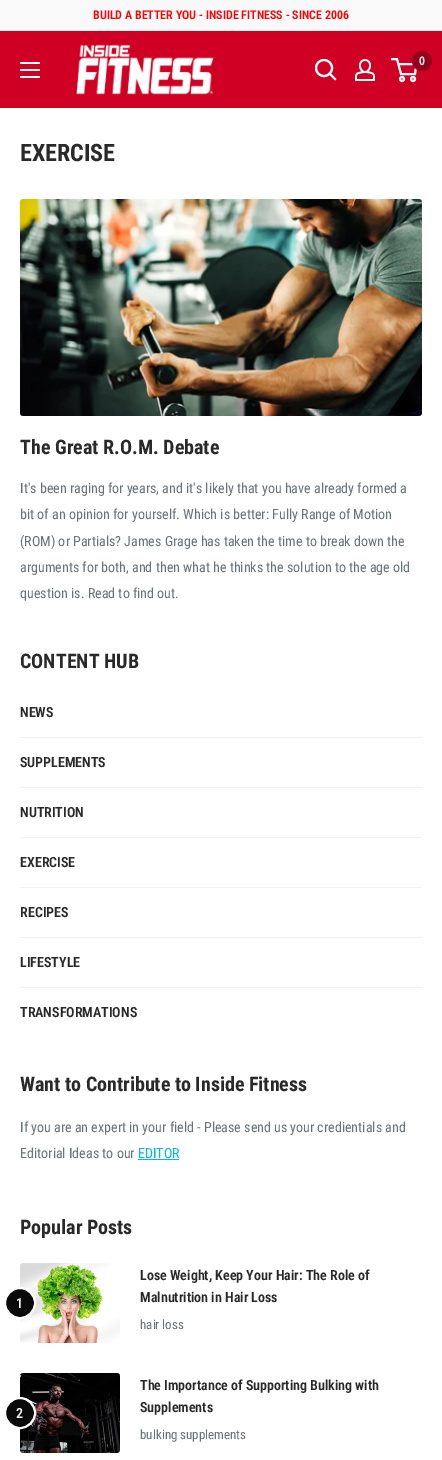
%!PS
<< /PageSize [442 1460] >> setpagedevice
/rgb { 3 { 255 div 3 1 roll } repeat setrgbcolor } def
/font { [ exch dup neg 0 0 3 -1 roll 0 0 ] selectfont } def
/text { moveto show } def
/circle { newpath 0 360 arc closepath } def
/picture { 5 dict begin { /h /w /y /x /name } { exch def } forall
  gsave x y translate w h scale
  w h 8 [w 0 0 h 0 0] name (r) file false 3 colorimage grestore end } def
0 1460 translate 1 -1 scale
4 setmiterlimit
255 255 255 rgb
0 0 442 1460 rectfill
249 249 249 rgb
0 0 442 30 rectfill
244 244 244 rgb
0 30 442 1 rectfill
208 0 37 rgb
0 31 442 77 rectfill
(img_01.rgb) 76 44 138 51 picture
255 255 255 rgb
2.1 setlinewidth
2 setlinecap
335 79 moveto -5.5 -5.5 rlineto stroke
0 setlinecap
324 68 8 circle stroke
(img_02.rgb) 355 59 20 22 picture
2 setlinewidth
402 79 2 circle stroke
413 79 2 circle stroke
398.5 64 moveto 18 0 rlineto -1.5 10 rlineto -14 0 rlineto -4 -15 rlineto -6 0 rlineto stroke
149 0 27 rgb
422 61 10 circle fill
(img_03.rgb) 20 62 20 16 picture
(img_04.rgb) 20 199 402 217 picture
242 242 242 rgb
20 737 402 1 rectfill
20 787 402 1 rectfill
20 837 402 1 rectfill
20 887 402 1 rectfill
20 937 402 1 rectfill
20 987 402 1 rectfill
0 186 219 rgb
138 1159 41 1 rectfill
(img_05.rgb) 20 1263 100 80 picture
10 10 10 rgb
20 1303 15 circle gsave fill grestore
255 255 255 rgb
stroke
(img_06.rgb) 20 1373 100 80 picture
10 10 10 rgb
20 1413 15 circle gsave fill grestore
255 255 255 rgb
stroke
/RobotoCondensed-SemiBold 12 font
255 0 0 rgb
(BUILD A BETTER YOU - INSIDE FITNESS - SINCE 2006) 93 19 text
240 240 240 rgb
(0) 419 65 text
/RobotoCondensed-Bold 24 font
41 41 41 rgb
(EXERCISE) 20 161 text
/RobotoCondensed-Bold 20 font
(The Great R.O.M. Debate) 20 454 text
/RobotoCondensed-Regular 14 font
103 114 121 rgb
(It's been raging for years, and it's likely that you have already formed a) 20 493 text
(bit of an opinion for yourself. Which is better: Fully Range of Motion) 20 519 text
(\(ROM\) or Partials? James Grage has taken the time to break down the) 20 546 text
(arguments for both, and then what he thinks the solution to the age old) 20 572 text
(question is. Read to find out.) 20 598 text
/RobotoCondensed-Bold 20 font
41 41 41 rgb
(CONTENT HUB) 20 668 text
/RobotoCondensed-SemiBold 14 font
(NEWS) 20 717 text
(SUPPLEMENTS) 20 767 text
(NUTRITION) 20 817 text
(EXERCISE) 20 867 text
(RECIPES) 20 917 text
(LIFESTYLE) 20 967 text
(TRANSFORMATIONS) 20 1017 text
/RobotoCondensed-Bold 20 font
(Want to Contribute to Inside Fitness) 20 1091 text
/RobotoCondensed-Regular 14 font
103 114 121 rgb
(If you are an expert in your field - Please send us your credientials and) 20 1132 text
(Editorial Ideas to our) 20 1158 text
0 186 219 rgb
(EDITOR) 138 1158 text
/RobotoCondensed-Bold 20 font
41 41 41 rgb
(Popular Posts) 20 1234 text
/RobotoCondensed-SemiBold 14 font
240 240 240 rgb
(1) 16 1308 text
41 41 41 rgb
(Lose Weight, Keep Your Hair: The Role of) 140 1280 text
(Malnutrition in Hair Loss) 140 1302 text
/RobotoCondensed-Regular 13 font
103 114 121 rgb
(hair loss) 140 1329 text
/RobotoCondensed-SemiBold 14 font
240 240 240 rgb
(2) 16 1418 text
41 41 41 rgb
(The Importance of Supporting Bulking with) 140 1390 text
(Supplements) 140 1412 text
/RobotoCondensed-Regular 13 font
103 114 121 rgb
(bulking supplements) 140 1439 text
showpage
